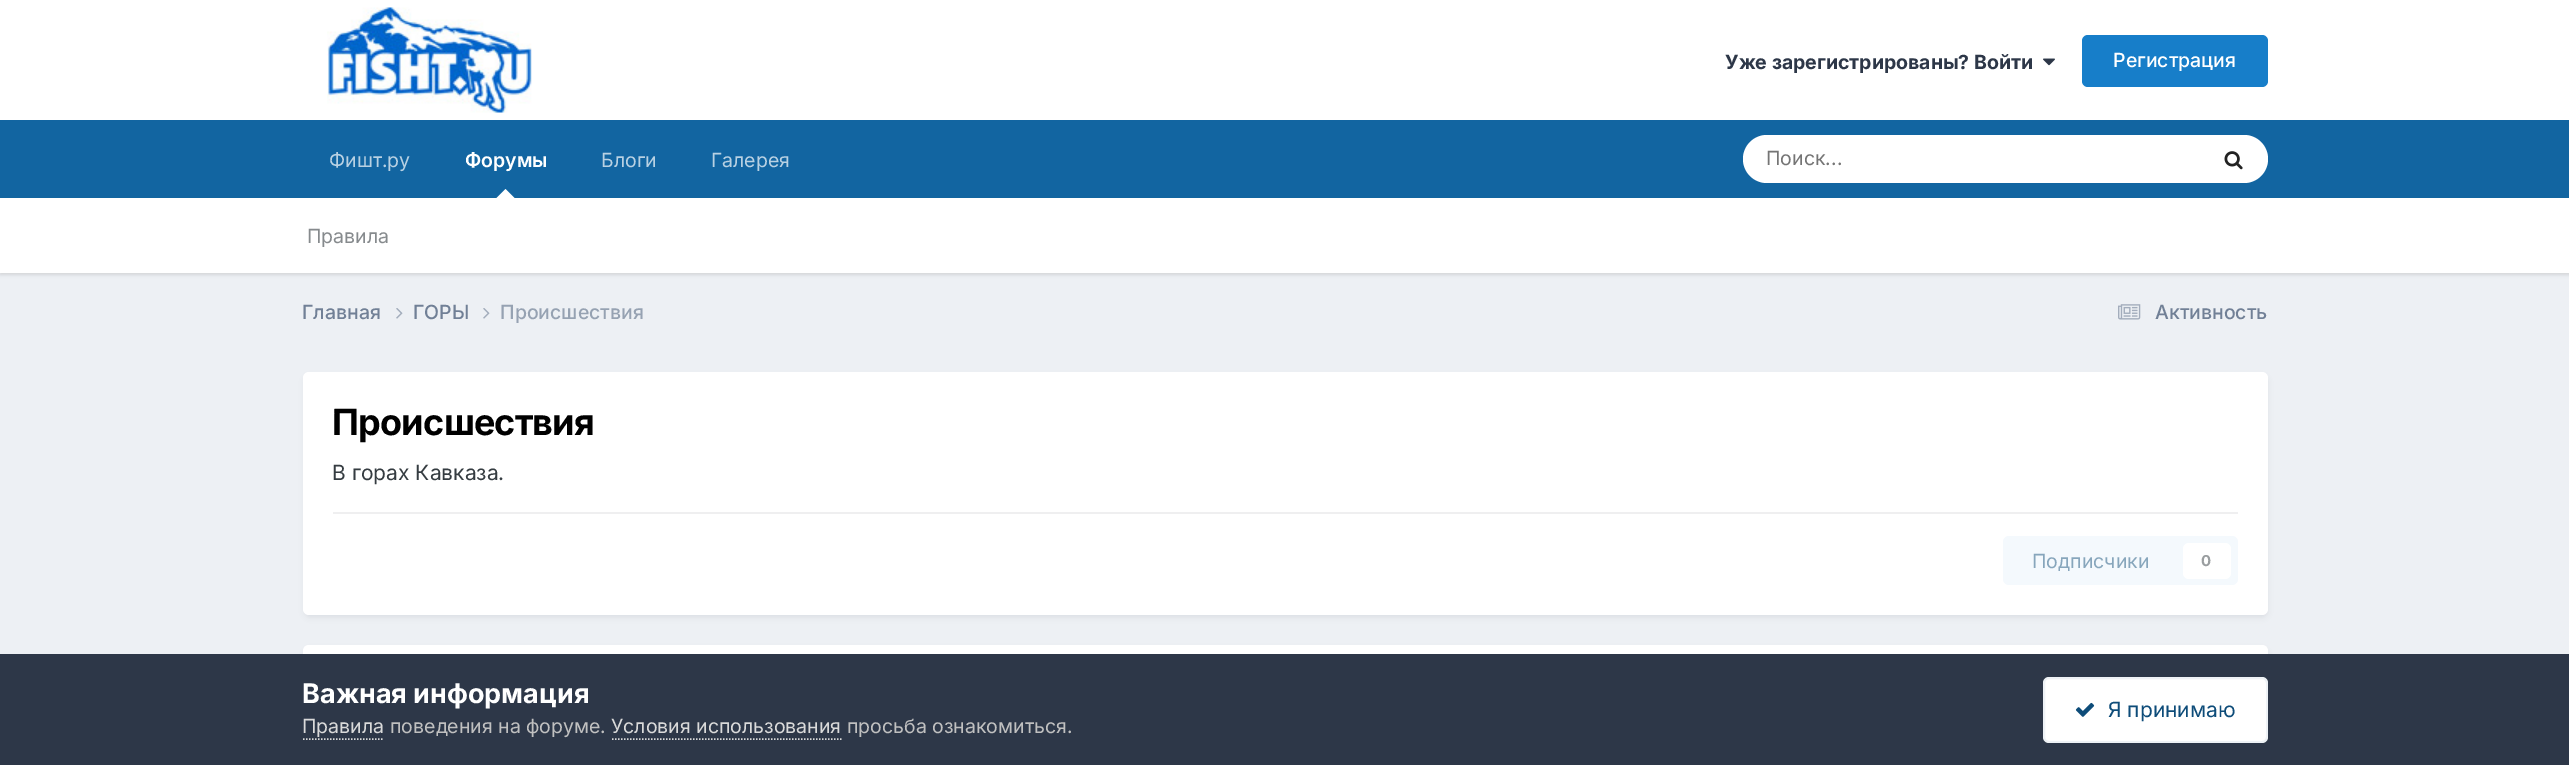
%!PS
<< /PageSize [2569 765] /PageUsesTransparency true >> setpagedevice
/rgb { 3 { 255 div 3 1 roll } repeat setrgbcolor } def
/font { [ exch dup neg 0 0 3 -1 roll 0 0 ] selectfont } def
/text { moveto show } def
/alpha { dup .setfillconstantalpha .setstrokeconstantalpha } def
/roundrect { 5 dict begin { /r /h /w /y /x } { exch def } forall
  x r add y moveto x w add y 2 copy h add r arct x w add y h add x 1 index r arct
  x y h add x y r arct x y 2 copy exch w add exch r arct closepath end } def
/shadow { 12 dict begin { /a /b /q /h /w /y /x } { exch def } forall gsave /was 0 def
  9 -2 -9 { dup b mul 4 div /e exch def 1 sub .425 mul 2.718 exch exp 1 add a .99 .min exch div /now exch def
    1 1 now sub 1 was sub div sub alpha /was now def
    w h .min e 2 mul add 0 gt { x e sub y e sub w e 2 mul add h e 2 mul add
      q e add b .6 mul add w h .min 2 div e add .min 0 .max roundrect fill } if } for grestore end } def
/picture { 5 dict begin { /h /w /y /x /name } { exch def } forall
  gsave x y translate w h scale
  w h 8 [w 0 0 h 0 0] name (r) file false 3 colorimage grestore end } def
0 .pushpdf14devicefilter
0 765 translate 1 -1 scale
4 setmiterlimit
237 240 244 rgb
0 0 2569 765 rectfill
255 255 255 rgb
0 0 2569 120 rectfill
(img_01.rgb) 327 7 205 106 picture
(img_02.rgb) 2043 58 12 8 picture
23 126 201 rgb
2082 35 186 52 6 roundrect fill
18 101 161 rgb
0 120 2569 78 rectfill
0 0 0 rgb
0 200 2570 75 0 1.5 0.1 shadow
255 255 255 rgb
514.5 198 moveto -18 0 rlineto 9 -9 rlineto closepath fill
1743 135 525 48 24 roundrect fill
(img_03.rgb) 2224 151 19 19 picture
0 198 2569 75 rectfill
(img_04.rgb) 396 308 7 11 picture
(img_04.rgb) 483 308 7 11 picture
(img_05.rgb) 2118 304 23 16 picture
45 55 72 rgb
305 377 1962 240 5 3 0.1 shadow
255 255 255 rgb
303 372 1965 243 6 roundrect fill
239 239 240 rgb
333 512 1905 2 rectfill
244 249 253 rgb
2003 536 235 49 6 roundrect fill
255 255 255 rgb
2183 543 48 36 6 roundrect fill
45 55 72 rgb
305 650 1962 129 5 3 0.1 shadow
255 255 255 rgb
309 645 moveto 1953 0 rlineto 3.5 0 6 2.5 6 6 rcurveto 0 71 rlineto -1965 0 rlineto 0 -71 rlineto 0 -3.5 2.5 -6 6 -6 rcurveto closepath fill
45 55 72 rgb
0 654 2569 111 rectfill
218 218 218 rgb
1.5 setlinewidth
[1.5 1.5] 0 setdash
303 739 moveto 81 0 rlineto stroke
612 739 moveto 229.5 0 rlineto stroke
255 255 255 rgb
2043 677 225 66 6 roundrect fill
0.07 alpha
14 76 121 rgb
2 setlinewidth
[] 0 setdash
2044 678 223 64 5 roundrect stroke
1 alpha
(img_06.rgb) 2075 702 20 15 picture
/Inter-Bold 19.5 font
45 55 72 rgb
(Уже зарегистрированы? Войти) 1725 69 text
/Inter-Medium 19.5 font
255 255 255 rgb
(Регистрация) 2113 67 text
/Inter-SemiBold 19.5 font
(Форумы) 465 167 text
/Inter-Regular 19.5 font
134 138 141 rgb
(Правила) 307 243 text
184 209 227 rgb
(Фишт.ру) 329 167 text
(Блоги) 601 167 text
(Галерея) 711 167 text
117 117 117 rgb
(Поиск...) 1766 165 text
/Inter-Medium 19.5 font
113 128 150 rgb
(Главная) 302 319 text
(ГОРЫ) 413 319 text
150 162 178 rgb
(Происшествия) 500 319 text
113 128 150 rgb
(Активность) 2155 319 text
/Inter-Bold 36 font
0 0 0 rgb
332 435 moveto -0.75 0 (Происшествия) ashow
/Inter-Regular 21 font
53 60 65 rgb
(В горах Кавказа.) 332 480 text
/Inter-Regular 19.5 font
135 166 188 rgb
(Подписчики) 2032 568 text
/Inter-Bold 15 font
154 158 160 rgb
(0) 2201 566 text
/Inter-Bold 27 font
255 255 255 rgb
(Важная информация) 302 703 text
/Inter-Regular 19.5 font
218 218 218 rgb
(Правила) 302 733 text
192 192 192 rgb
(поведения на форуме.) 390 733 text
218 218 218 rgb
(Условия использования) 611 733 text
192 192 192 rgb
(просьба ознакомиться.) 847 733 text
/Inter-Regular 21 font
14 76 121 rgb
(Я принимаю) 2108 717 text
.poppdf14devicefilter showpage
